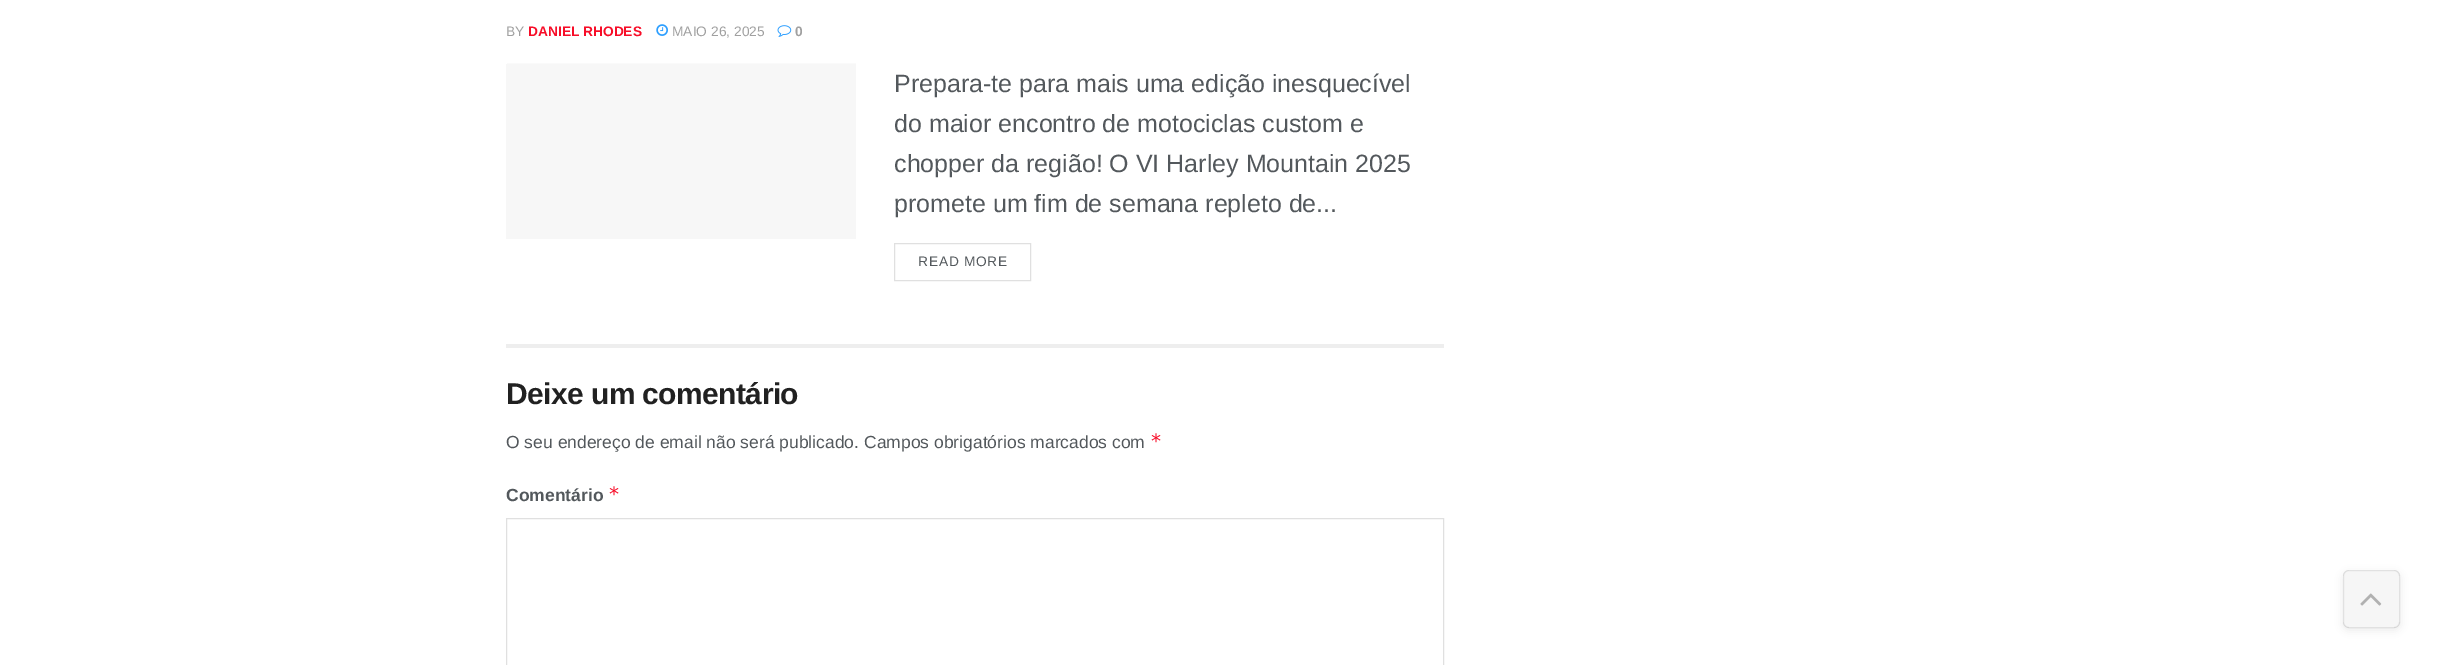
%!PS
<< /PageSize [2437 665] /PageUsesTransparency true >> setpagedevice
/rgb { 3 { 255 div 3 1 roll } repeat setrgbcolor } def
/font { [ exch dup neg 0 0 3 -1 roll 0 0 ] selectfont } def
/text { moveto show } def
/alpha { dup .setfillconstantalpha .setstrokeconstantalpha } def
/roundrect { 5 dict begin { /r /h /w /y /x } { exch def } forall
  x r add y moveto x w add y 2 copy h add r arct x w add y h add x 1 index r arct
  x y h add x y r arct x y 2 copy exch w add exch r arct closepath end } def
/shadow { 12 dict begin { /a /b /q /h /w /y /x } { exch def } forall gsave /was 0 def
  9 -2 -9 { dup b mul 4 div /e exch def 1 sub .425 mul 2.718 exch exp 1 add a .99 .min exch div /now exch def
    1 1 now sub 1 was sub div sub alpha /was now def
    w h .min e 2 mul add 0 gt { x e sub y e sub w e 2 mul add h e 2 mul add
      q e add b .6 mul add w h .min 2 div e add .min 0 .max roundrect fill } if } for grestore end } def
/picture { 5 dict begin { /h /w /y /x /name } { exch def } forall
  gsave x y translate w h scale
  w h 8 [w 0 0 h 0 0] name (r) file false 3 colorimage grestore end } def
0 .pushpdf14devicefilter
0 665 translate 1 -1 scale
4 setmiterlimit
255 255 255 rgb
0 0 2437 665 rectfill
(img_01.rgb) 656 24 12 12 picture
(img_02.rgb) 777 25 15 12 picture
247 247 247 rgb
506 64 350 175 rectfill
250 250 250 rgb
507 63 349 1 rectfill
224 224 224 rgb
894.5 243.5 136 37 rectstroke
238 238 238 rgb
506 344 938 4 rectfill
224 224 224 rgb
506.5 518.5 937 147 rectstroke
gsave
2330 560 moveto 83 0 rlineto 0 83 rlineto -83 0 rlineto closepath 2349 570 moveto 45 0 rlineto 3.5 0 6 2.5 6 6 rcurveto 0 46 rlineto 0 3.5 -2.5 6 -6 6 rcurveto -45 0 rlineto -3.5 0 -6 -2.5 -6 -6 rcurveto 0 -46 rlineto 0 -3.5 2.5 -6 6 -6 rcurveto closepath eoclip newpath
51 51 51 rgb
2343 573 57 57 6 4 0.1 shadow
grestore
0.15 alpha
196 196 196 rgb
2343 570 57 58 6 roundrect fill
0.11 alpha
51 51 51 rgb
2343.5 570.5 56 57 5.5 roundrect stroke
1 alpha
(img_03.rgb) 2360 593 22 13 picture
/LiberationSans-Regular 13.75 font
160 160 160 rgb
(BY) 506 36 text
/LiberationSans-Bold 13.75 font
247 13 40 rgb
(DANIEL RHODES) 528 36 text
/LiberationSans-Regular 13.75 font
160 160 160 rgb
(MAIO 26, 2025) 672 36 text
/LiberationSans-Bold 13.75 font
(0) 795 36 text
/LiberationSans-Regular 25 font
83 88 92 rgb
(Prepara-te para mais uma edição inesquecível) 894 92 text
(do maior encontro de motociclas custom e) 894 132 text
(chopper da região! O VI Harley Mountain 2025) 894 172 text
(promete um fim de semana repleto de...) 894 212 text
/LiberationSans-Regular 13.75 font
918 266 moveto 0.75 0 (READ MORE) ashow
/LiberationSans-Bold 30 font
33 33 33 rgb
506 404 moveto -0.6 0 (Deixe um comentário) ashow
/LiberationSans-Regular 17.5 font
83 88 92 rgb
(O seu endereço de email não será publicado. Campos obrigatórios marcados com) 506 448 text
/DejaVuSansMono-Regular 20 font
247 13 40 rgb
(*) 1150 448 text
/LiberationSans-Bold 17.5 font
83 88 92 rgb
(Comentário) 506 501 text
/DejaVuSansMono-Regular 20 font
247 13 40 rgb
(*) 608 501 text
.poppdf14devicefilter showpage
